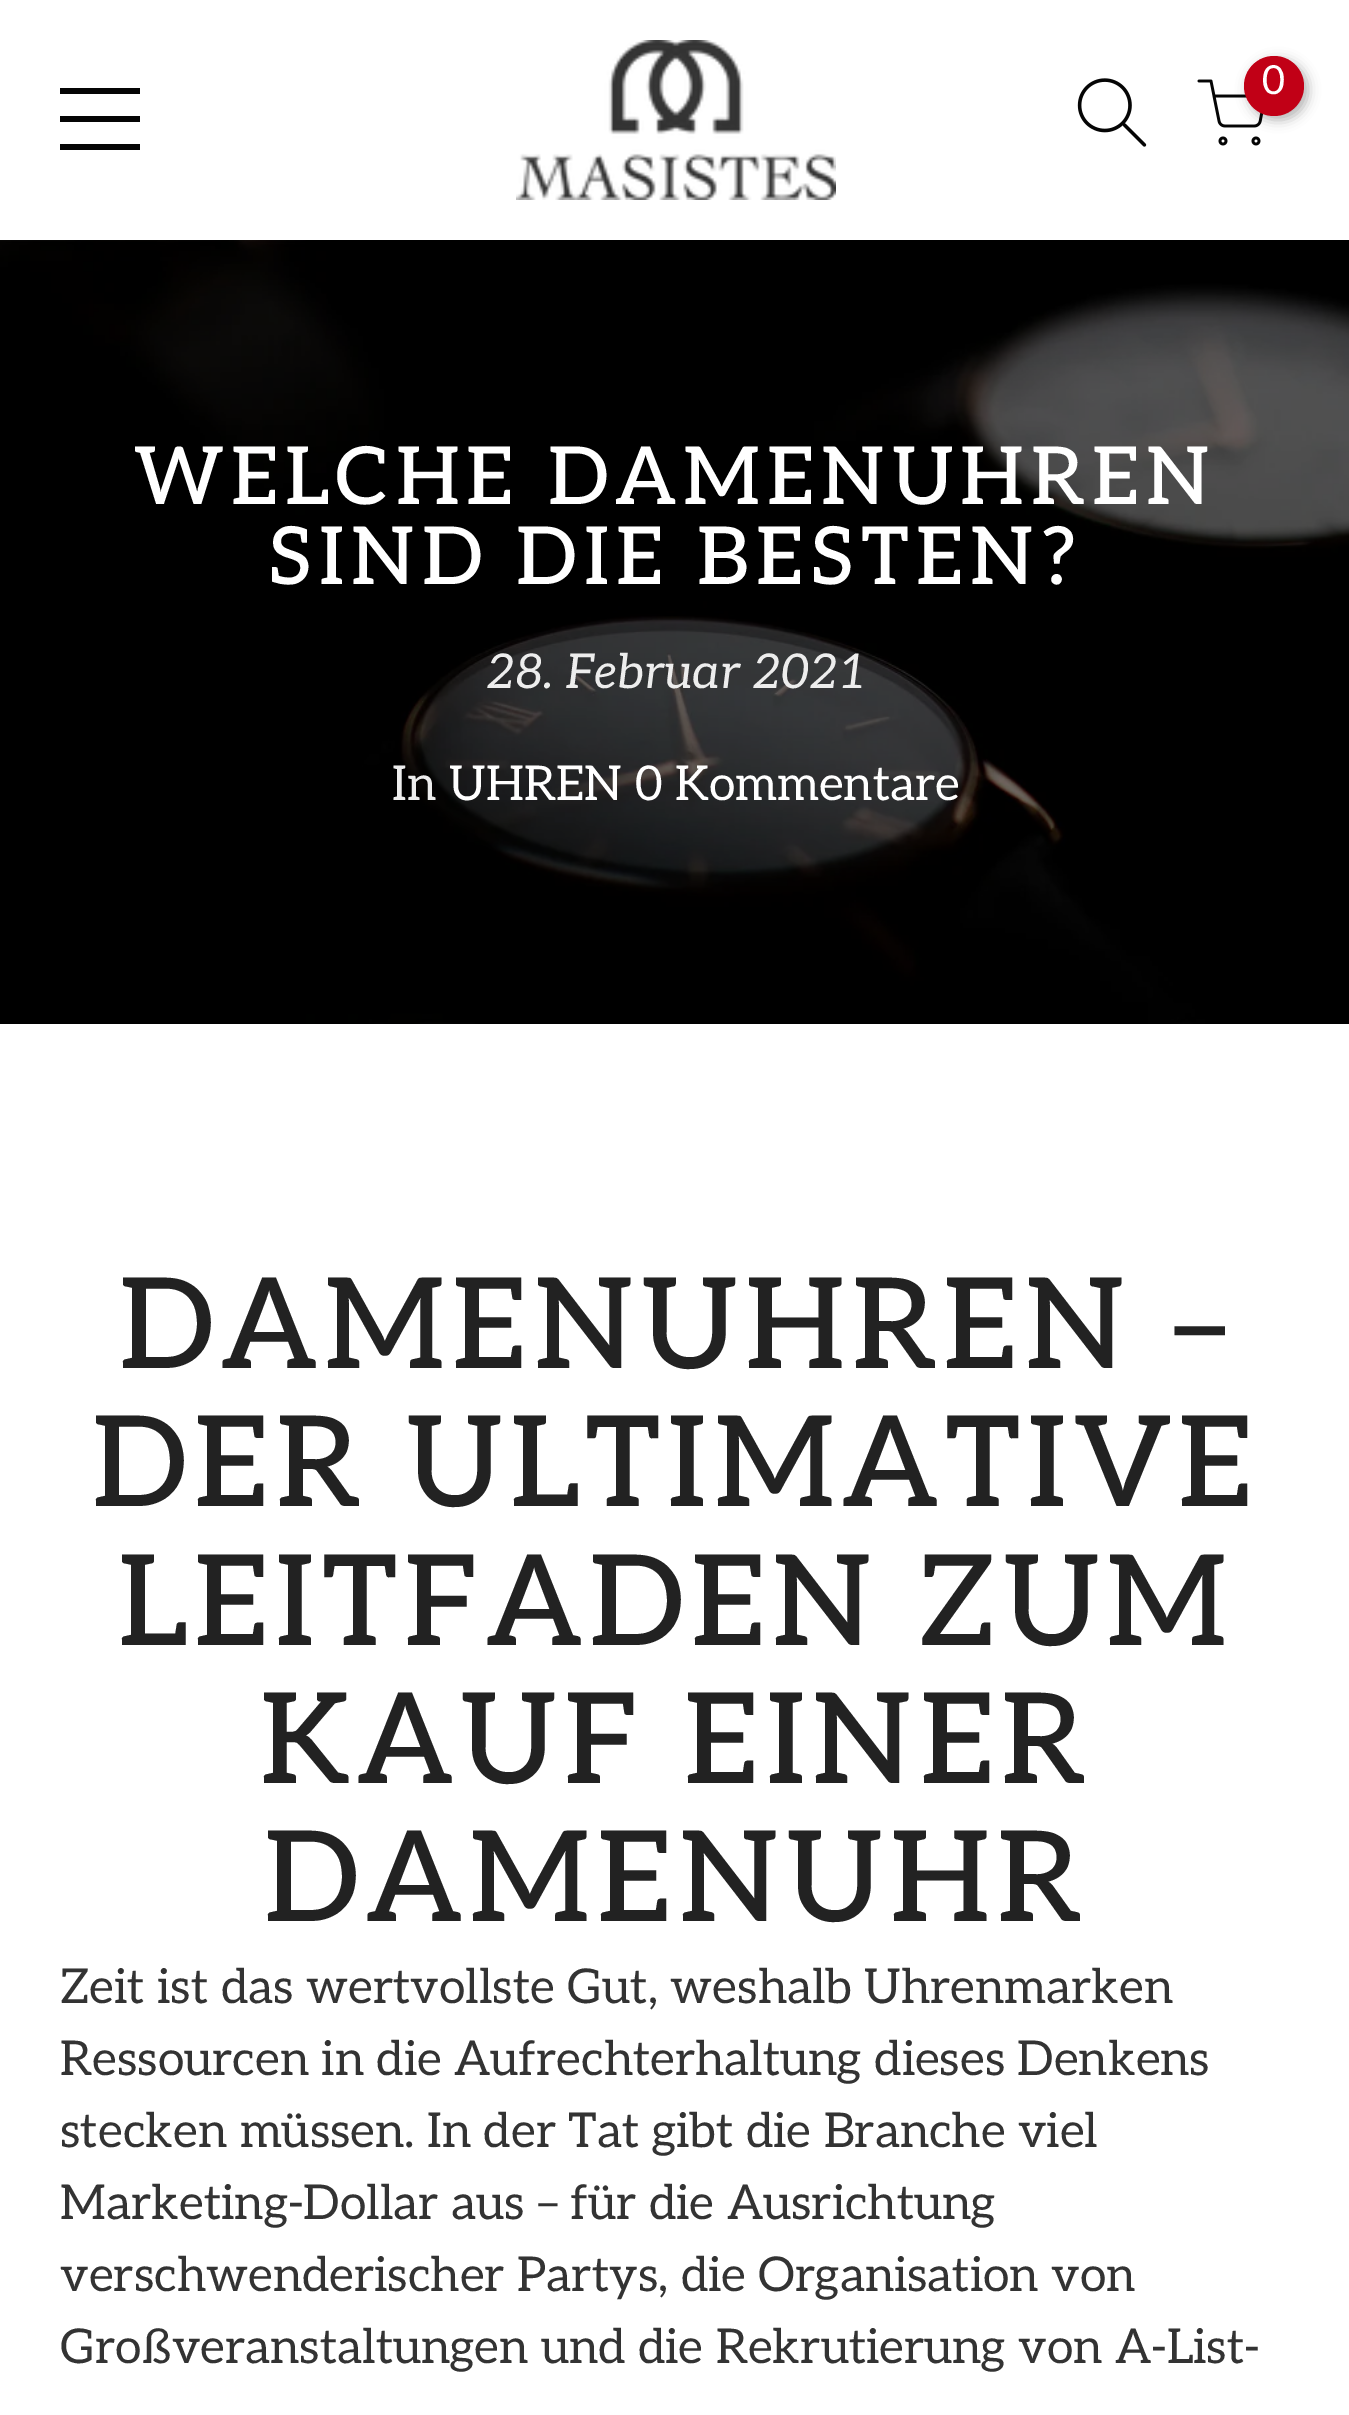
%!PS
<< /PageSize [1349 2415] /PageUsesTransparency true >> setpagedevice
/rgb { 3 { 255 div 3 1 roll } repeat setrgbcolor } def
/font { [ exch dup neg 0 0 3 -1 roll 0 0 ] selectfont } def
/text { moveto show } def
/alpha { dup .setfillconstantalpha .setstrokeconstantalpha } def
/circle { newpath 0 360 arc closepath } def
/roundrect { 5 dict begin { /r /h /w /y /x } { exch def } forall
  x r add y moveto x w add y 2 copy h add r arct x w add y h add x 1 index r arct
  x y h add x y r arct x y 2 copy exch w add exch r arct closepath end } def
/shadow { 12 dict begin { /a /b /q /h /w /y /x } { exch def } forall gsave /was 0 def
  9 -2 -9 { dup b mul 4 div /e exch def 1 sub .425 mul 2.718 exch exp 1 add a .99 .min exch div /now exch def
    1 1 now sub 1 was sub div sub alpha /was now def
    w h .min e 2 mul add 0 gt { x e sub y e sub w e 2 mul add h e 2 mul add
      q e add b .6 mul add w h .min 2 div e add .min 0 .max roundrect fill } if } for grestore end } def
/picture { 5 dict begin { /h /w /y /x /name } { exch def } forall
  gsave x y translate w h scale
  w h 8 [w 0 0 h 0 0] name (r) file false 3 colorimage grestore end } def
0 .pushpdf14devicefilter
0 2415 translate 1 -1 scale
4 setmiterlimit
255 255 255 rgb
0 0 1349 2415 rectfill
(img_01.rgb) 516 40 320 160 picture
(img_02.rgb) 1077 78 70 69 picture
(img_03.rgb) 1197 79 67 67 picture
0 0 0 rgb
1248 60 60 60 30 6 0.3 shadow
193 0 22 rgb
1274 86 30 circle fill
5 5 5 rgb
60 88 80 6 rectfill
60 116 80 6 rectfill
60 144 80 6 rectfill
(img_04.rgb) 0 240 1349 784 picture
/Aleo-Regular 40 font
255 255 255 rgb
(0) 1262 94 text
/Aleo-Medium 80 font
134 504 moveto 6.75 0 (WELCHE DAMENUHREN) ashow
268 584 moveto 6.75 0 (SIND DIE BESTEN?) ashow
/Aleo-Italic 48 font
237 237 237 rgb
(28. Februar 2021) 486 688 text
/Aleo-Regular 48 font
(In) 392 800 text
255 255 255 rgb
(UHREN 0 Kommentare) 449 800 text
/Aleo-Medium 125.75 font
34 34 34 rgb
119 1368 moveto 6.75 0 (DAMENUHREN –) ashow
92 1506 moveto 6.75 0 (DER ULTIMATIVE) ashow
118 1645 moveto 6.75 0 (LEITFADEN ZUM) ashow
260 1783 moveto 6.75 0 (KAUF EINER) ashow
264 1921 moveto 6.75 0 (DAMENUHR) ashow
/Aleo-Regular 48 font
51 51 51 rgb
(Zeit ist das wertvollste Gut, weshalb Uhrenmarken) 60 2003 text
(Ressourcen in die Aufrechterhaltung dieses Denkens) 60 2075 text
(stecken müssen. In der Tat gibt die Branche viel) 60 2147 text
(Marketing-Dollar aus – für die Ausrichtung) 60 2219 text
(verschwenderischer Partys, die Organisation von) 60 2291 text
(Großveranstaltungen und die Rekrutierung von A-List-) 60 2363 text
.poppdf14devicefilter showpage
